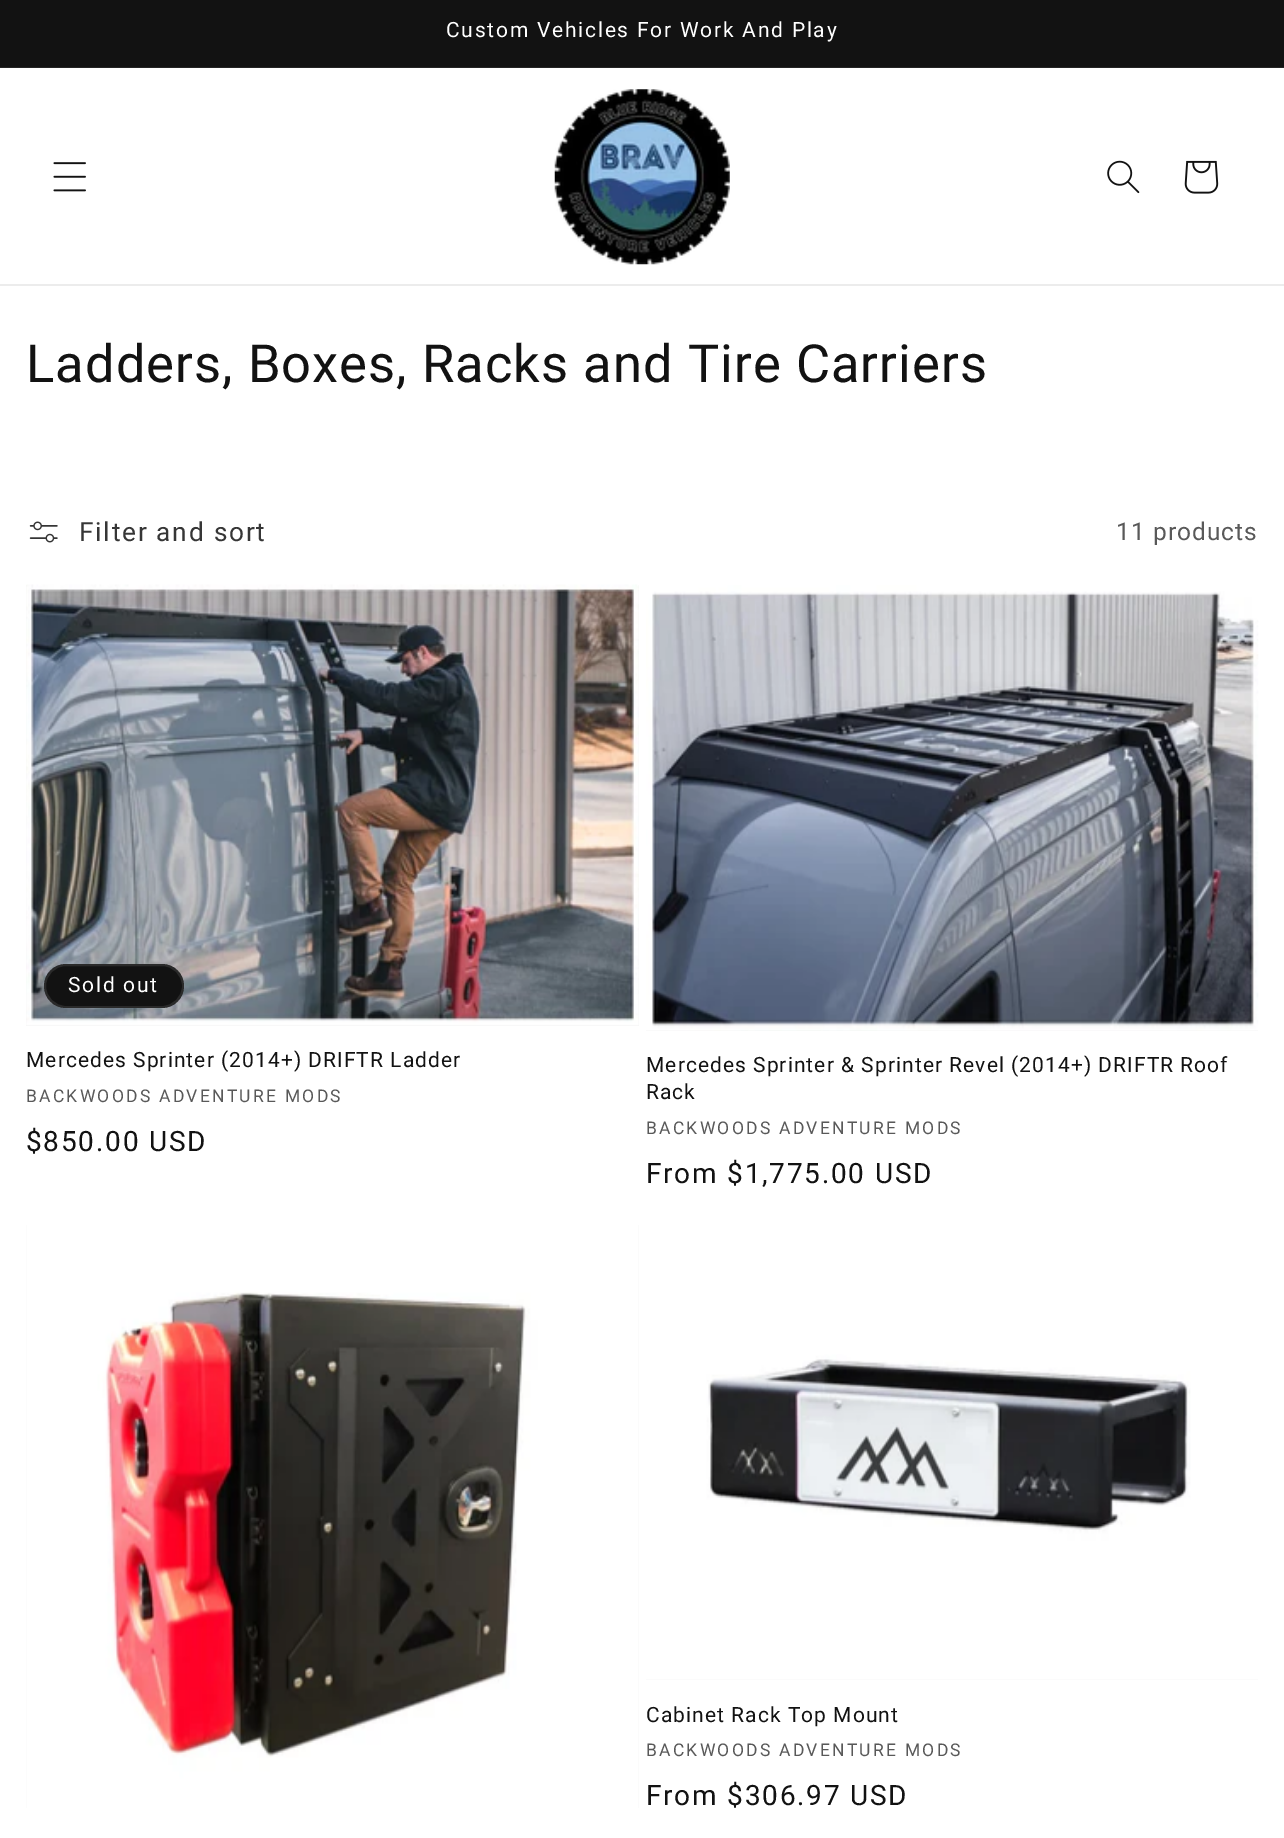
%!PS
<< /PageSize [1284 1838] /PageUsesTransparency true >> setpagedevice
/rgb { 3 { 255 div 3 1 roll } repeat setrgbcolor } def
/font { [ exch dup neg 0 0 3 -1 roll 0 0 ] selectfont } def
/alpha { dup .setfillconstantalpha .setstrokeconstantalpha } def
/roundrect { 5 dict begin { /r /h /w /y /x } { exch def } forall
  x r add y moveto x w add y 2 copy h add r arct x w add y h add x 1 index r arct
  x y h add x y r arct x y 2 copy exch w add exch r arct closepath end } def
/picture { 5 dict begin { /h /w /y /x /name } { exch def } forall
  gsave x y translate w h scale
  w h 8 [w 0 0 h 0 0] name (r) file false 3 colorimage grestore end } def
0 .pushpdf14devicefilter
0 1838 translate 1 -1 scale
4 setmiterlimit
255 255 255 rgb
0 0 1284 1838 rectfill
18 18 18 rgb
0 0 1284 67 rectfill
37 37 37 rgb
0 67 1284 1 rectfill
236 236 236 rgb
0 284 1284 2 rectfill
(img_01.rgb) 53 162 33 30 picture
(img_02.rgb) 554 89 176 176 picture
(img_03.rgb) 1107 160 33 34 picture
(img_04.rgb) 1184 160 35 34 picture
(img_05.rgb) 29 521 29 22 picture
243 243 243 rgb
26 585 613 441 rectfill
(img_06.rgb) 26 584 613 442 picture
18 18 18 rgb
44 964 140 44 22 roundrect fill
0.1 alpha
255 255 255 rgb
2 setlinewidth
45 965 138 42 21 roundrect stroke
1 alpha
243 243 243 rgb
646 1030 612 1 rectfill
(img_07.rgb) 646 585 613 446 picture
26 1225 613 583 rectfill
(img_08.rgb) 26 1225 613 583 picture
646 1679 612 1 rectfill
(img_09.rgb) 646 1225 612 455 picture
/Roboto-Regular 21 font
255 255 255 rgb
446 37 moveto 1.75 0 (Custom Vehicles For Work And Play) ashow
/Roboto-Regular 52.5 font
18 18 18 rgb
26 382 moveto 1.05 0 (Ladders, Boxes, Racks and Tire Carriers) ashow
/Roboto-Regular 26.25 font
54 54 54 rgb
79 541 moveto 1.75 0 (Filter and sort) ashow
/Roboto-Regular 24.5 font
89 89 89 rgb
1116 540 moveto 1.05 0 (11 products) ashow
/Roboto-Regular 21 font
255 255 255 rgb
68 992 moveto 1.75 0 (Sold out) ashow
18 18 18 rgb
26 1067 moveto 1.05 0 (Mercedes Sprinter \(2014+\) DRIFTR Ladder) ashow
/Roboto-Regular 17.5 font
89 89 89 rgb
26 1102 moveto 2.25 0 (BACKWOODS ADVENTURE MODS) ashow
/Roboto-Regular 28 font
18 18 18 rgb
26 1151 moveto 1.75 0 ($850.00 USD) ashow
/Roboto-Regular 21 font
646 1072 moveto 1.05 0 (Mercedes Sprinter & Sprinter Revel \(2014+\) DRIFTR Roof) ashow
646 1099 moveto 1.05 0 (Rack) ashow
/Roboto-Regular 17.5 font
89 89 89 rgb
646 1134 moveto 2.25 0 (BACKWOODS ADVENTURE MODS) ashow
/Roboto-Regular 28 font
18 18 18 rgb
646 1183 moveto 1.75 0 (From $1,775.00 USD) ashow
/Roboto-Regular 21 font
646 1722 moveto 1.05 0 (Cabinet Rack Top Mount) ashow
/Roboto-Regular 17.5 font
89 89 89 rgb
646 1756 moveto 2.25 0 (BACKWOODS ADVENTURE MODS) ashow
/Roboto-Regular 28 font
18 18 18 rgb
646 1805 moveto 1.75 0 (From $306.97 USD) ashow
.poppdf14devicefilter showpage
